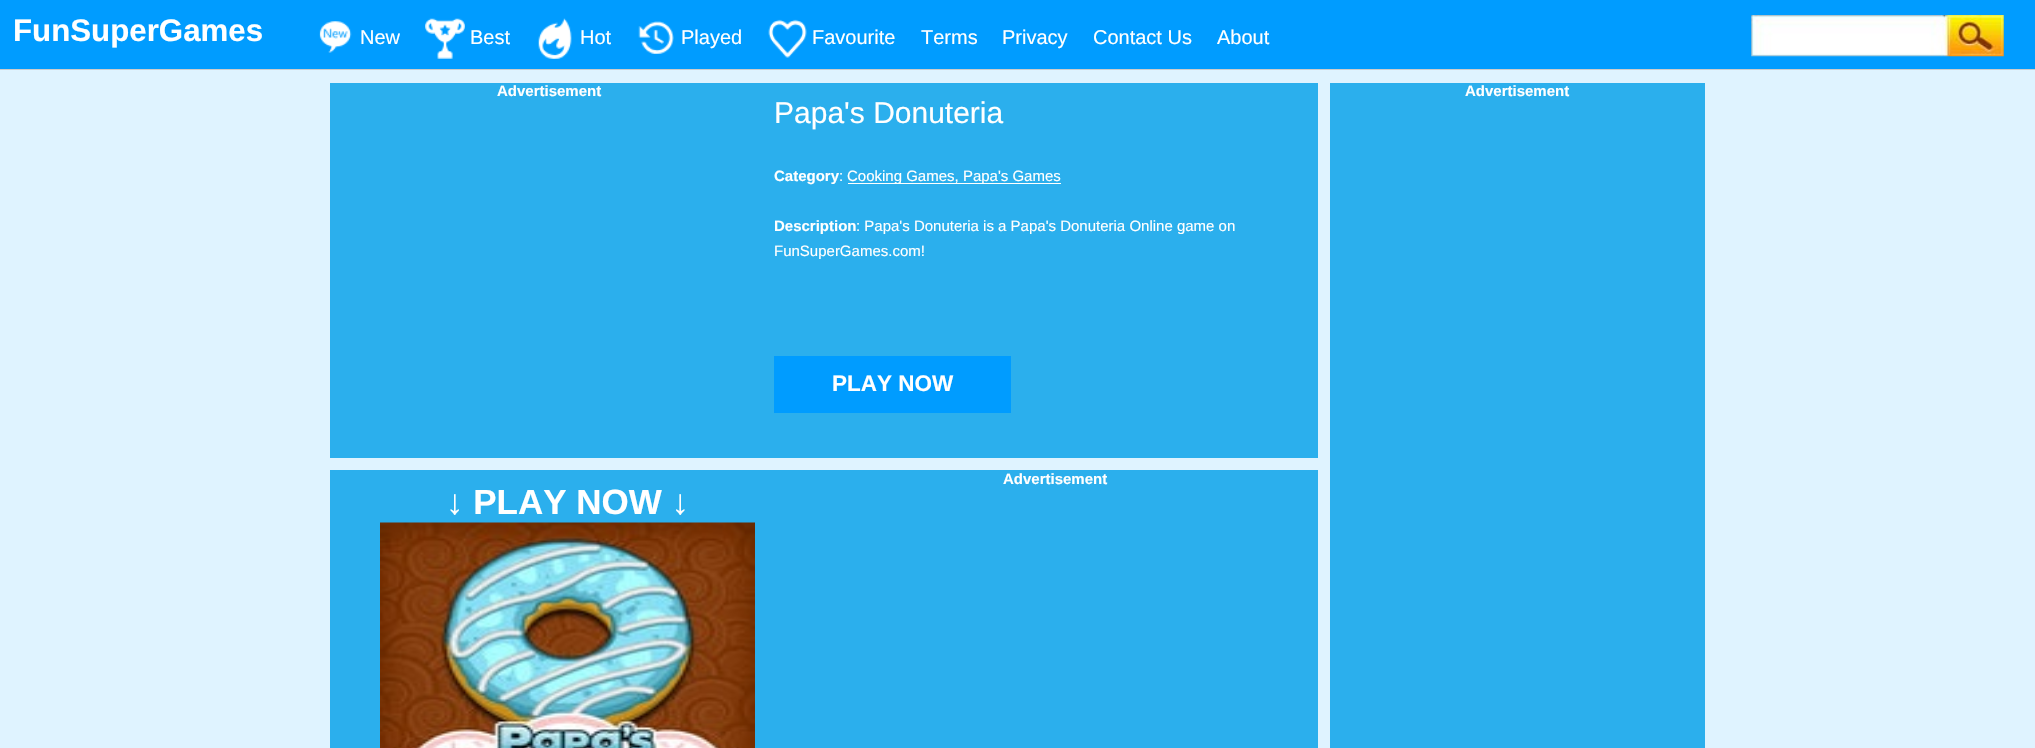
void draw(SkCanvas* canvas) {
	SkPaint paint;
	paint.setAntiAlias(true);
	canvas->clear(0xffdff3ff);
	paint.setColor(0xff009cff);
	canvas->drawRect(SkRect::MakeXYWH(0, 0, 2035, 69), paint);
	paint.setColor(0xffcccccc);
	canvas->drawRect(SkRect::MakeXYWH(0, 69, 2035, 1), paint);
	SkFont f1(fontMgr->matchFamilyStyle("Liberation Sans", SkFontStyle::Bold()), 31.25);
	f1.setSubpixel(true);
	paint.setColor(0xffffffff);
	canvas->drawString("FunSuperGames", 13, 41, f1, paint);
	canvas->drawImageRect(SkImages::DeferredFromEncodedData(SkData::MakeFromFileName("img1.png")), SkRect::MakeXYWH(319, 21, 33, 32), SkSamplingOptions());
	SkFont f2(fontMgr->matchFamilyStyle("Liberation Sans", SkFontStyle::Normal()), 20);
	f2.setSubpixel(true);
	canvas->drawString("New", 360, 44, f2, paint);
	canvas->drawImageRect(SkImages::DeferredFromEncodedData(SkData::MakeFromFileName("img2.png")), SkRect::MakeXYWH(425, 18, 40, 41), SkSamplingOptions());
	canvas->drawString("Best", 470, 44, f2, paint);
	canvas->drawImageRect(SkImages::DeferredFromEncodedData(SkData::MakeFromFileName("img3.png")), SkRect::MakeXYWH(538, 18, 34, 41), SkSamplingOptions());
	canvas->drawString("Hot", 580, 44, f2, paint);
	canvas->drawImageRect(SkImages::DeferredFromEncodedData(SkData::MakeFromFileName("img4.png")), SkRect::MakeXYWH(638, 21, 36, 33), SkSamplingOptions());
	canvas->drawString("Played", 681, 44, f2, paint);
	canvas->drawImageRect(SkImages::DeferredFromEncodedData(SkData::MakeFromFileName("img5.png")), SkRect::MakeXYWH(768, 19, 39, 39), SkSamplingOptions());
	canvas->drawString("Favourite", 812, 44, f2, paint);
	canvas->drawString("Terms", 921, 44, f2, paint);
	canvas->drawString("Privacy", 1002, 44, f2, paint);
	canvas->drawString("Contact Us", 1093, 44, f2, paint);
	canvas->drawString("About", 1217, 44, f2, paint);
	canvas->drawImageRect(SkImages::DeferredFromEncodedData(SkData::MakeFromFileName("img6.png")), SkRect::MakeXYWH(1751, 15, 253, 42), SkSamplingOptions());
	paint.setColor(0xff2bafed);
	canvas->drawRect(SkRect::MakeXYWH(330, 83, 988, 375), paint);
	SkFont f3(fontMgr->matchFamilyStyle("Liberation Sans", SkFontStyle::Bold()), 15);
	f3.setSubpixel(true);
	paint.setColor(0xffffffff);
	canvas->drawString("Advertisement", 497, 96, f3, paint);
	SkFont f4(fontMgr->matchFamilyStyle("Liberation Sans", SkFontStyle::Normal()), 30);
	f4.setSubpixel(true);
	canvas->drawString("Papa's Donuteria", 774, 123, f4, paint);
	canvas->drawString("Category", 774, 181, f3, paint);
	SkFont f5(fontMgr->matchFamilyStyle("Liberation Sans", SkFontStyle::Normal()), 15);
	f5.setSubpixel(true);
	canvas->drawString(":", 839, 181, f5, paint);
	canvas->drawRect(SkRect::MakeXYWH(848, 183, 213, 1), paint);
	canvas->drawString("Cooking Games, Papa's Games", 847, 181, f5, paint);
	canvas->drawString("Description", 774, 231, f3, paint);
	canvas->drawString(": Papa's Donuteria is a Papa's Donuteria Online game on", 856, 231, f5, paint);
	canvas->drawString("FunSuperGames.com!", 774, 256, f5, paint);
	paint.setColor(0xff009cff);
	canvas->drawRect(SkRect::MakeXYWH(774, 356, 237, 57), paint);
	SkFont f6(fontMgr->matchFamilyStyle("Liberation Sans", SkFontStyle::Bold()), 22.5);
	f6.setSubpixel(true);
	paint.setColor(0xffffffff);
	canvas->drawString("PLAY NOW", 832, 391, f6, paint);
	paint.setColor(0xff2bafed);
	canvas->drawRect(SkRect::MakeXYWH(330, 470, 988, 278), paint);
	paint.setColor(0xffffffff);
	canvas->drawString("Advertisement", 1003, 484, f3, paint);
	SkFont f7(fontMgr->matchFamilyStyle("Liberation Sans", SkFontStyle::Bold()), 35);
	f7.setSubpixel(true);
	canvas->drawString("↓ PLAY NOW ↓", 446, 514, f7, paint);
	canvas->drawImageRect(SkImages::DeferredFromEncodedData(SkData::MakeFromFileName("img7.png")), SkRect::MakeXYWH(380, 522, 375, 226), SkSamplingOptions());
	paint.setColor(0xff2bafed);
	canvas->drawRect(SkRect::MakeXYWH(1330, 83, 375, 665), paint);
	paint.setColor(0xffffffff);
	canvas->drawString("Advertisement", 1465, 96, f3, paint);
}
